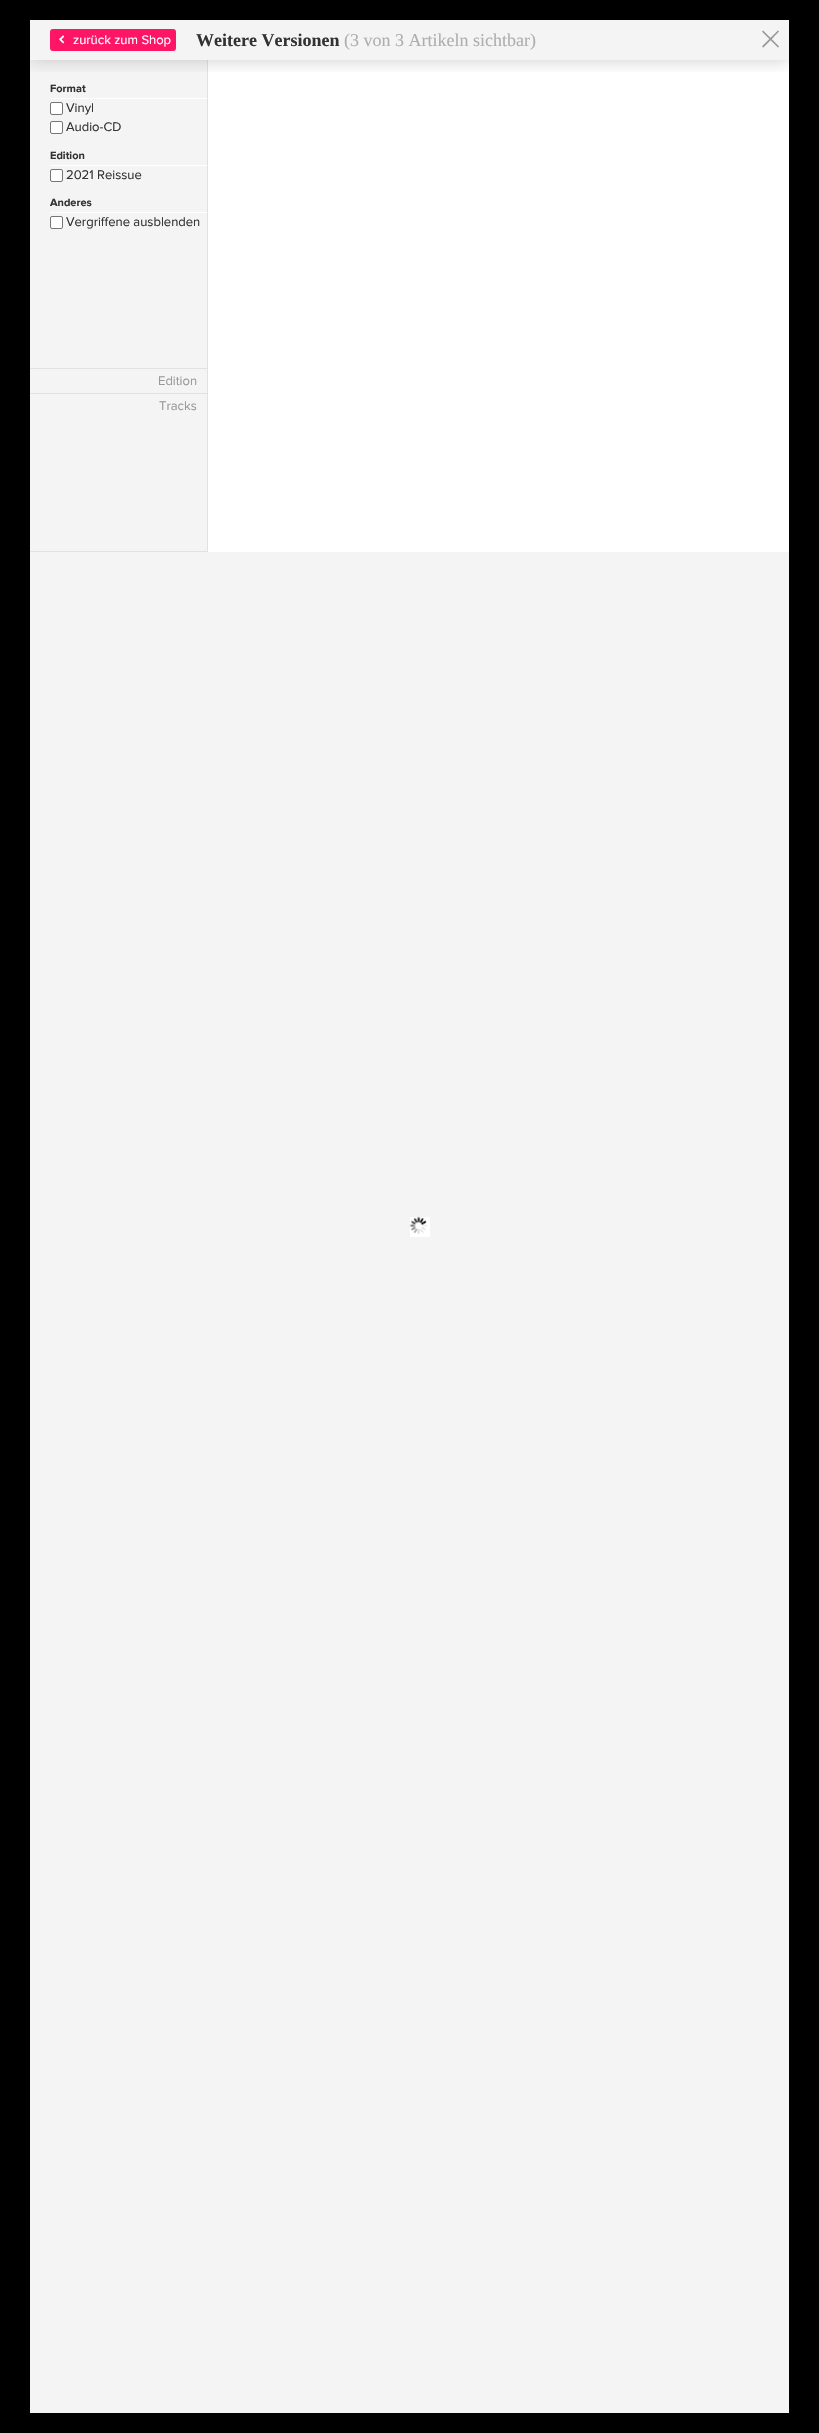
void draw(SkCanvas* canvas) {
	SkPaint paint;
	paint.setAntiAlias(true);
	canvas->clear(0xfff4f4f4);
	paint.setColor(0xffe1e1e1);
	canvas->drawRect(SkRect::MakeXYWH(30, 368, 178, 1), paint);
	canvas->drawRect(SkRect::MakeXYWH(207, 60, 1, 333), paint);
	paint.setColor(0xffffffff);
	canvas->drawRect(SkRect::MakeXYWH(208, 60, 581, 492), paint);
	canvas->save();
	canvas->clipRect(SkRect::MakeXYWH(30, 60, 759, 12));
	paint.setColor(0x33000000);
	paint.setMaskFilter(SkMaskFilter::MakeBlur(kNormal_SkBlurStyle, 9));
	canvas->drawRect(SkRect::MakeXYWH(30, 20, 759, 40), paint);
	paint.setMaskFilter(nullptr);
	canvas->restore();
	paint.setColor(0xff000000);
	canvas->drawRect(SkRect::MakeXYWH(0, 0, 30, 2433), paint);
	canvas->drawRect(SkRect::MakeXYWH(30, 0, 759, 20), paint);
	canvas->drawRect(SkRect::MakeXYWH(789, 0, 30, 2413), paint);
	paint.setColor(0xffff1566);
	canvas->drawRoundRect(SkRect::MakeXYWH(50, 29, 126, 22), 3, 3, paint);
	canvas->drawImageRect(SkImages::DeferredFromEncodedData(SkData::MakeFromFileName("img1.png")), SkRect::MakeXYWH(59, 35, 5, 9), SkSamplingOptions());
	SkFont f1(fontMgr->matchFamilyStyle("Proxima Nova", SkFontStyle::Normal()), 13);
	f1.setSubpixel(true);
	paint.setColor(0xffffffff);
	canvas->drawString("zurück zum Shop", 73, 44, f1, paint);
	SkFont f2(fontMgr->matchFamilyStyle("Liberation Serif", SkFontStyle::Bold()), 18);
	f2.setSubpixel(true);
	paint.setColor(0xff333333);
	canvas->drawString("Weitere Versionen", 196, 46, f2, paint);
	SkFont f3(fontMgr->matchFamilyStyle("Liberation Serif", SkFontStyle::Normal()), 18);
	f3.setSubpixel(true);
	paint.setColor(0xffaeaeae);
	canvas->drawString("(3 von 3 Artikeln sichtbar)", 344, 46, f3, paint);
	canvas->drawImageRect(SkImages::DeferredFromEncodedData(SkData::MakeFromFileName("img2.png")), SkRect::MakeXYWH(762, 30, 17, 18), SkSamplingOptions());
	paint.setColor(0xffe1e1e1);
	canvas->drawRect(SkRect::MakeXYWH(30, 551, 178, 1), paint);
	paint.setColor(0xffffffff);
	canvas->drawRect(SkRect::MakeXYWH(50, 98, 157, 1), paint);
	SkFont f4(fontMgr->matchFamilyStyle("Proxima Nova", SkFontStyle::Bold()), 11);
	f4.setSubpixel(true);
	paint.setColor(0xff333333);
	canvas->drawString("Format", 50, 92, f4, paint);
	paint.setColor(0xffffffff);
	canvas->drawRoundRect(SkRect::MakeXYWH(50.5, 102.5, 12, 12), 1.5, 1.5, paint);
	paint.setStroke(true);
	paint.setStrokeWidth(1);
	paint.setColor(0xff767676);
	canvas->drawRoundRect(SkRect::MakeXYWH(50.5, 102.5, 12, 12), 1.5, 1.5, paint);
	paint.setStroke(false);
	paint.setColor(0xff333333);
	canvas->drawString("Vinyl", 66, 112, f1, paint);
	paint.setColor(0xffffffff);
	canvas->drawRoundRect(SkRect::MakeXYWH(50.5, 121.5, 12, 12), 1.5, 1.5, paint);
	paint.setStroke(true);
	paint.setColor(0xff767676);
	canvas->drawRoundRect(SkRect::MakeXYWH(50.5, 121.5, 12, 12), 1.5, 1.5, paint);
	paint.setStroke(false);
	paint.setColor(0xff333333);
	canvas->drawString("Audio-CD", 66, 131, f1, paint);
	paint.setColor(0xffffffff);
	canvas->drawRect(SkRect::MakeXYWH(50, 165, 157, 1), paint);
	paint.setColor(0xff333333);
	canvas->drawString("Edition", 50, 159, f4, paint);
	paint.setColor(0xffffffff);
	canvas->drawRoundRect(SkRect::MakeXYWH(50.5, 169.5, 12, 12), 1.5, 1.5, paint);
	paint.setStroke(true);
	paint.setColor(0xff767676);
	canvas->drawRoundRect(SkRect::MakeXYWH(50.5, 169.5, 12, 12), 1.5, 1.5, paint);
	paint.setStroke(false);
	paint.setColor(0xff333333);
	canvas->drawString("2021 Reissue", 66, 179, f1, paint);
	paint.setColor(0xffffffff);
	canvas->drawRect(SkRect::MakeXYWH(50, 212, 157, 1), paint);
	paint.setColor(0xff333333);
	canvas->drawString("Anderes", 50, 206, f4, paint);
	paint.setColor(0xffffffff);
	canvas->drawRoundRect(SkRect::MakeXYWH(50.5, 216.5, 12, 12), 1.5, 1.5, paint);
	paint.setStroke(true);
	paint.setColor(0xff767676);
	canvas->drawRoundRect(SkRect::MakeXYWH(50.5, 216.5, 12, 12), 1.5, 1.5, paint);
	paint.setStroke(false);
	paint.setColor(0xff333333);
	canvas->drawString("Vergriffene ausblenden", 66, 226, f1, paint);
	paint.setColor(0xff999999);
	canvas->drawString("Edition", 158, 385, f1, paint);
	paint.setColor(0xffe1e1e1);
	canvas->drawRect(SkRect::MakeXYWH(30, 393, 178, 1), paint);
	canvas->drawRect(SkRect::MakeXYWH(207, 393, 1, 158), paint);
	paint.setColor(0xff999999);
	canvas->drawString("Tracks", 159, 410, f1, paint);
	paint.setColor(0xffffffff);
	canvas->drawRect(SkRect::MakeXYWH(410, 1217, 20, 20), paint);
	canvas->drawImageRect(SkImages::DeferredFromEncodedData(SkData::MakeFromFileName("img3.png")), SkRect::MakeXYWH(409, 1216, 18, 18), SkSamplingOptions());
	paint.setColor(0xff000000);
	canvas->drawRect(SkRect::MakeXYWH(30, 2413, 789, 20), paint);
}
